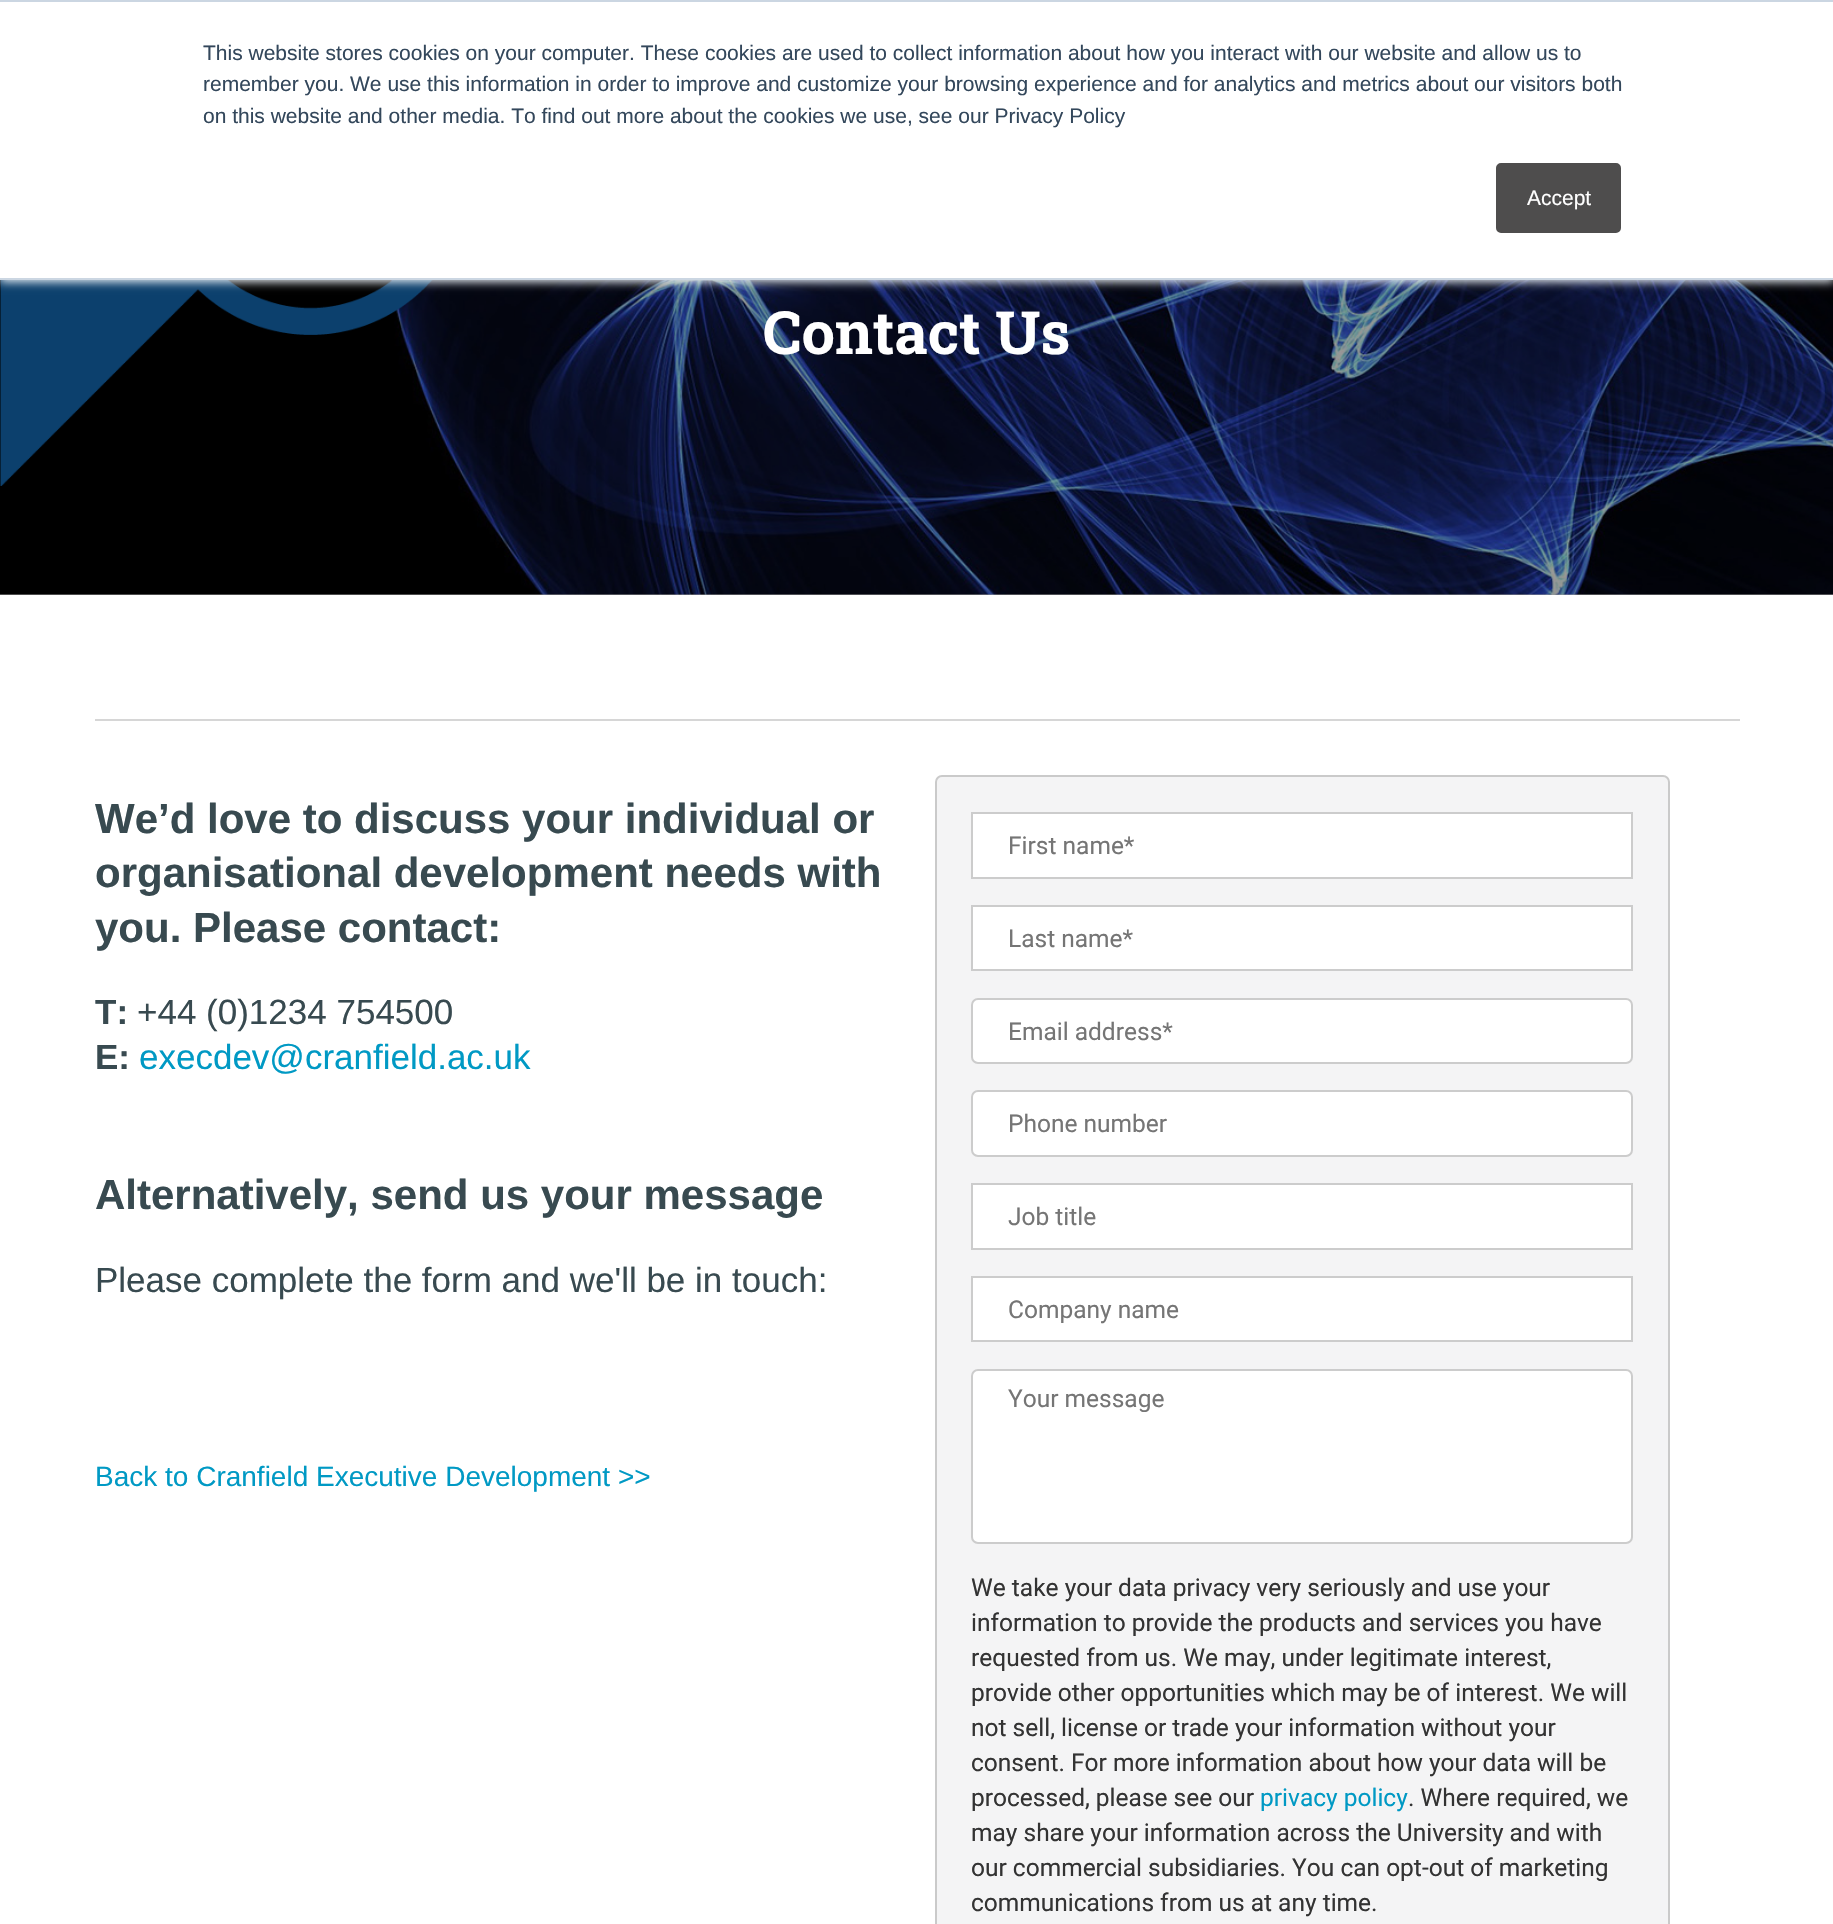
void draw(SkCanvas* canvas) {
	SkPaint paint;
	paint.setAntiAlias(true);
	auto svgPath = [&](const char* data, bool evenOdd = false) {
		SkPath result = *SkParsePath::FromSVGString(data);
		if (evenOdd) result.setFillType(SkPathFillType::kEvenOdd);
		return result;
	};
	canvas->clear(0xffffffff);
	canvas->drawImageRect(SkImages::DeferredFromEncodedData(SkData::MakeFromFileName("img1.png")), SkRect::MakeXYWH(0, 280, 1833, 315), SkSamplingOptions());
	canvas->save();
	canvas->clipRect(SkRect::MakeXYWH(0, 0, 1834, 595));
	paint.setColor(0x66000000);
	canvas->drawPath(svgPath("M-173-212H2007V768H-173ZM525 1186H1309V770H525Z", true), paint);
	canvas->restore();
	canvas->drawImageRect(SkImages::DeferredFromEncodedData(SkData::MakeFromFileName("img2.png")), SkRect::MakeXYWH(0, 280, 433, 206), SkSamplingOptions());
	paint.setColor(0xffeaf0f6);
	paint.setMaskFilter(SkMaskFilter::MakeBlur(kNormal_SkBlurStyle, 4.5));
	canvas->drawRect(SkRect::MakeXYWH(0, 2, 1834, 280), paint);
	paint.setMaskFilter(nullptr);
	paint.setColor(0xffffffff);
	canvas->drawRect(SkRect::MakeXYWH(0, 2, 1833, 276), paint);
	paint.setColor(0xffcbd6e2);
	canvas->drawRect(SkRect::MakeXYWH(0, 0, 1833, 2), paint);
	canvas->drawRect(SkRect::MakeXYWH(0, 278, 1833, 2), paint);
	SkFont f1(fontMgr->matchFamilyStyle("Liberation Sans", SkFontStyle::Normal()), 21);
	f1.setSubpixel(true);
	paint.setColor(0xff33475b);
	canvas->drawString("This website stores cookies on your computer. These cookies are used to collect information about how you interact with our website and allow us to", 203, 60, f1, paint);
	canvas->drawString("remember you. We use this information in order to improve and customize your browsing experience and for analytics and metrics about our visitors both", 203, 91, f1, paint);
	canvas->drawString("on this website and other media. To find out more about the cookies we use, see our Privacy Policy", 203, 123, f1, paint);
	paint.setColor(0xff4e4d4d);
	canvas->drawRoundRect(SkRect::MakeXYWH(1497, 164, 123, 68), 4, 4, paint);
	paint.setStroke(true);
	paint.setStrokeWidth(2);
	canvas->drawRoundRect(SkRect::MakeXYWH(1497, 164, 123, 68), 4, 4, paint);
	paint.setStroke(false);
	paint.setColor(0xffffffff);
	canvas->drawString("Accept", 1527, 205, f1, paint);
	SkFont f2(fontMgr->matchFamilyStyle("Roboto Slab", SkFontStyle::Bold()), 59.5);
	f2.setSubpixel(true);
	canvas->drawString("Contact Us", 763, 354, f2, paint);
	paint.setColor(0xffd6d6d6);
	canvas->drawRect(SkRect::MakeXYWH(95, 719, 1645, 2), paint);
	SkFont f3(fontMgr->matchFamilyStyle("Liberation Sans", SkFontStyle::Bold()), 42);
	f3.setSubpixel(true);
	paint.setColor(0xff384a50);
	canvas->drawString("We’d love to discuss your individual or", 95, 833, f3, paint);
	canvas->drawString("organisational development needs with", 95, 887, f3, paint);
	canvas->drawString("you. Please contact:", 95, 942, f3, paint);
	SkFont f4(fontMgr->matchFamilyStyle("Liberation Sans", SkFontStyle::Bold()), 35);
	f4.setSubpixel(true);
	canvas->drawString("T:", 95, 1024, f4, paint);
	SkFont f5(fontMgr->matchFamilyStyle("Liberation Sans", SkFontStyle::Normal()), 35);
	f5.setSubpixel(true);
	canvas->drawString("+44 (0)1234 754500", 137, 1024, f5, paint);
	canvas->drawString("E:", 95, 1069, f4, paint);
	paint.setColor(0xff0099c4);
	canvas->drawString("execdev@cranfield.ac.uk", 139, 1069, f5, paint);
	paint.setColor(0xff384a50);
	canvas->drawString("Alternatively, send us your message", 95, 1209, f3, paint);
	canvas->drawString("Please complete the form and we'll be in touch:", 95, 1292, f5, paint);
	SkFont f6(fontMgr->matchFamilyStyle("Liberation Sans", SkFontStyle::Normal()), 28);
	f6.setSubpixel(true);
	paint.setColor(0xff0099c4);
	canvas->drawString("Back to Cranfield Executive Development >>", 95, 1486, f6, paint);
	paint.setColor(0xfff4f4f5);
	canvas->drawRoundRect(SkRect::MakeXYWH(936, 776, 733, 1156), 6, 6, paint);
	paint.setStroke(true);
	paint.setColor(0xffcacaca);
	canvas->drawRoundRect(SkRect::MakeXYWH(936, 776, 733, 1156), 6, 6, paint);
	paint.setStroke(false);
	paint.setColor(0xffffffff);
	canvas->drawRect(SkRect::MakeXYWH(972, 813, 660, 65), paint);
	paint.setStroke(true);
	paint.setColor(0xffcccccc);
	canvas->drawRect(SkRect::MakeXYWH(972, 813, 660, 65), paint);
	SkFont f7(fontMgr->matchFamilyStyle("Roboto", SkFontStyle::Normal()), 24.5);
	f7.setSubpixel(true);
	paint.setStroke(false);
	paint.setColor(0xff757575);
	canvas->drawString("First name*", 1008, 854, f7, paint);
	paint.setColor(0xffffffff);
	canvas->drawRect(SkRect::MakeXYWH(972, 906, 660, 64), paint);
	paint.setStroke(true);
	paint.setColor(0xffcccccc);
	canvas->drawRect(SkRect::MakeXYWH(972, 906, 660, 64), paint);
	paint.setStroke(false);
	paint.setColor(0xff757575);
	canvas->drawString("Last name*", 1008, 947, f7, paint);
	paint.setColor(0xffffffff);
	canvas->drawRoundRect(SkRect::MakeXYWH(972, 999, 660, 64), 6, 6, paint);
	paint.setStroke(true);
	paint.setColor(0xffcccccc);
	canvas->drawRoundRect(SkRect::MakeXYWH(972, 999, 660, 64), 6, 6, paint);
	paint.setStroke(false);
	paint.setColor(0xff757575);
	canvas->drawString("Email address*", 1008, 1040, f7, paint);
	paint.setColor(0xffffffff);
	canvas->drawRoundRect(SkRect::MakeXYWH(972, 1091, 660, 65), 6, 6, paint);
	paint.setStroke(true);
	paint.setColor(0xffcccccc);
	canvas->drawRoundRect(SkRect::MakeXYWH(972, 1091, 660, 65), 6, 6, paint);
	paint.setStroke(false);
	paint.setColor(0xff757575);
	canvas->drawString("Phone number", 1008, 1132, f7, paint);
	paint.setColor(0xffffffff);
	canvas->drawRect(SkRect::MakeXYWH(972, 1184, 660, 65), paint);
	paint.setStroke(true);
	paint.setColor(0xffcccccc);
	canvas->drawRect(SkRect::MakeXYWH(972, 1184, 660, 65), paint);
	paint.setStroke(false);
	paint.setColor(0xff757575);
	canvas->drawString("Job title", 1008, 1225, f7, paint);
	paint.setColor(0xffffffff);
	canvas->drawRect(SkRect::MakeXYWH(972, 1277, 660, 64), paint);
	paint.setStroke(true);
	paint.setColor(0xffcccccc);
	canvas->drawRect(SkRect::MakeXYWH(972, 1277, 660, 64), paint);
	paint.setStroke(false);
	paint.setColor(0xff757575);
	canvas->drawString("Company name", 1008, 1318, f7, paint);
	paint.setColor(0xffffffff);
	canvas->drawRoundRect(SkRect::MakeXYWH(972, 1370, 660, 173), 6, 6, paint);
	paint.setStroke(true);
	paint.setColor(0xffcccccc);
	canvas->drawRoundRect(SkRect::MakeXYWH(972, 1370, 660, 173), 6, 6, paint);
	paint.setStroke(false);
	paint.setColor(0xff757575);
	canvas->drawString("Your message", 1008, 1407, f7, paint);
	paint.setColor(0xff333333);
	canvas->drawString("We take your data privacy very seriously and use your", 971, 1596, f7, paint);
	canvas->drawString("information to provide the products and services you have", 971, 1631, f7, paint);
	canvas->drawString("requested from us. We may, under legitimate interest,", 971, 1666, f7, paint);
	canvas->drawString("provide other opportunities which may be of interest. We will", 971, 1701, f7, paint);
	canvas->drawString("not sell, license or trade your information without your", 971, 1736, f7, paint);
	canvas->drawString("consent. For more information about how your data will be", 971, 1771, f7, paint);
	canvas->drawString("processed, please see our", 971, 1806, f7, paint);
	paint.setColor(0xff0099c4);
	canvas->drawString("privacy policy", 1260, 1806, f7, paint);
	paint.setColor(0xff333333);
	canvas->drawString(". Where required, we", 1408, 1806, f7, paint);
	canvas->drawString("may share your information across the University and with", 971, 1841, f7, paint);
	canvas->drawString("our commercial subsidiaries. You can opt-out of marketing", 971, 1876, f7, paint);
	canvas->drawString("communications from us at any time.", 971, 1911, f7, paint);
}
